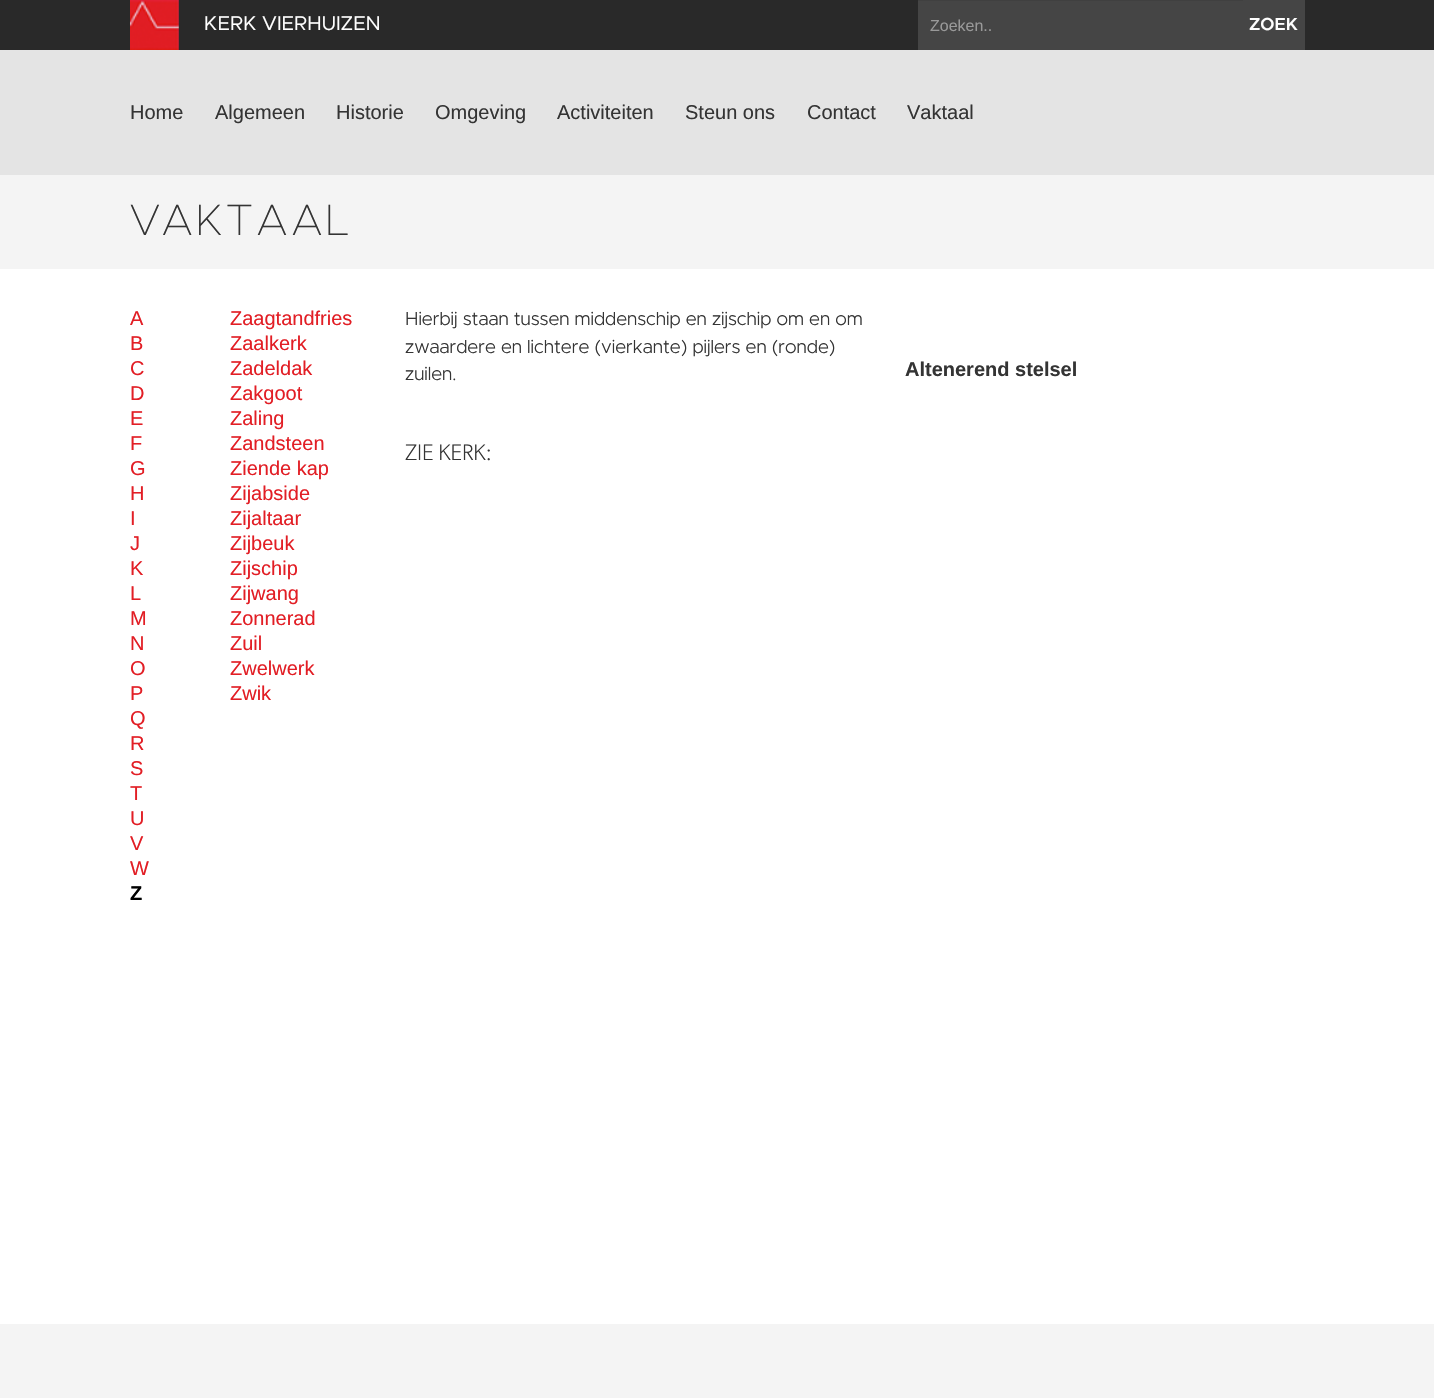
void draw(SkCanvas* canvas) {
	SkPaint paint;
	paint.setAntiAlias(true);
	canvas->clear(0xffffffff);
	paint.setColor(0xff292929);
	canvas->drawRect(SkRect::MakeXYWH(0, 0, 1434, 50), paint);
	canvas->drawImageRect(SkImages::DeferredFromEncodedData(SkData::MakeFromFileName("img1.png")), SkRect::MakeXYWH(130, 0, 49, 50), SkSamplingOptions());
	SkFont f1(fontMgr->matchFamilyStyle("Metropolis", SkFontStyle::Normal()), 20);
	f1.setSubpixel(true);
	paint.setColor(0xffffffff);
	canvas->drawString("KERK VIERHUIZEN", 204, 30, f1, paint);
	paint.setColor(0xff454545);
	canvas->drawRect(SkRect::MakeXYWH(918, 0, 387, 50), paint);
	paint.setColor(0xff404040);
	canvas->drawRect(SkRect::MakeXYWH(918, 0, 325, 1), paint);
	SkFont f2(fontMgr->matchFamilyStyle("Liberation Sans", SkFontStyle::Normal()), 16);
	f2.setSubpixel(true);
	paint.setColor(0xff999999);
	canvas->drawString("Zoeken..", 930, 31, f2, paint);
	SkFont f3(fontMgr->matchFamilyStyle("Metropolis", SkFontStyle(600, SkFontStyle::kNormal_Width, SkFontStyle::kUpright_Slant)), 17.5);
	f3.setSubpixel(true);
	paint.setColor(0xffffffff);
	canvas->drawString("ZOEK", 1249, 30, f3, paint);
	paint.setColor(0xffe4e4e4);
	canvas->drawRect(SkRect::MakeXYWH(0, 50, 1434, 125), paint);
	SkFont f4(fontMgr->matchFamilyStyle("Liberation Sans", SkFontStyle::Normal()), 20);
	f4.setSubpixel(true);
	paint.setColor(0xff343434);
	canvas->drawString("Home", 130, 119, f4, paint);
	canvas->drawString("Algemeen", 215, 119, f4, paint);
	canvas->drawString("Historie", 336, 119, f4, paint);
	canvas->drawString("Omgeving", 435, 119, f4, paint);
	canvas->drawString("Activiteiten", 557, 119, f4, paint);
	canvas->drawString("Steun ons", 685, 119, f4, paint);
	canvas->drawString("Contact", 807, 119, f4, paint);
	canvas->drawString("Vaktaal", 907, 119, f4, paint);
	paint.setColor(0xfff4f4f4);
	canvas->drawRect(SkRect::MakeXYWH(0, 175, 1434, 94), paint);
	SkFont f5(fontMgr->matchFamilyStyle("Metropolis", SkFontStyle(100, SkFontStyle::kNormal_Width, SkFontStyle::kUpright_Slant)), 44);
	f5.setSubpixel(true);
	paint.setColor(0xff343434);
	canvas->drawString("VAKTAAL", 130, 235, f5, paint);
	paint.setColor(0xffe21e25);
	canvas->drawString("A", 130, 325, f4, paint);
	canvas->drawString("B", 130, 350, f4, paint);
	canvas->drawString("C", 130, 375, f4, paint);
	canvas->drawString("D", 130, 400, f4, paint);
	canvas->drawString("E", 130, 425, f4, paint);
	canvas->drawString("F", 130, 450, f4, paint);
	canvas->drawString("G", 130, 475, f4, paint);
	canvas->drawString("H", 130, 500, f4, paint);
	canvas->drawString("I", 130, 525, f4, paint);
	canvas->drawString("J", 130, 550, f4, paint);
	canvas->drawString("K", 130, 575, f4, paint);
	canvas->drawString("L", 130, 600, f4, paint);
	canvas->drawString("M", 130, 625, f4, paint);
	canvas->drawString("N", 130, 650, f4, paint);
	canvas->drawString("O", 130, 675, f4, paint);
	canvas->drawString("P", 130, 700, f4, paint);
	canvas->drawString("Q", 130, 725, f4, paint);
	canvas->drawString("R", 130, 750, f4, paint);
	canvas->drawString("S", 130, 775, f4, paint);
	canvas->drawString("T", 130, 800, f4, paint);
	canvas->drawString("U", 130, 825, f4, paint);
	canvas->drawString("V", 130, 850, f4, paint);
	canvas->drawString("W", 130, 875, f4, paint);
	SkFont f6(fontMgr->matchFamilyStyle("Liberation Sans", SkFontStyle::Bold()), 20);
	f6.setSubpixel(true);
	paint.setColor(0xff000000);
	canvas->drawString("Z", 130, 900, f6, paint);
	paint.setColor(0xffe21e25);
	canvas->drawString("Zaagtandfries", 230, 325, f4, paint);
	canvas->drawString("Zaalkerk", 230, 350, f4, paint);
	canvas->drawString("Zadeldak", 230, 375, f4, paint);
	canvas->drawString("Zakgoot", 230, 400, f4, paint);
	canvas->drawString("Zaling", 230, 425, f4, paint);
	canvas->drawString("Zandsteen", 230, 450, f4, paint);
	canvas->drawString("Ziende kap", 230, 475, f4, paint);
	canvas->drawString("Zijabside", 230, 500, f4, paint);
	canvas->drawString("Zijaltaar", 230, 525, f4, paint);
	canvas->drawString("Zijbeuk", 230, 550, f4, paint);
	canvas->drawString("Zijschip", 230, 575, f4, paint);
	canvas->drawString("Zijwang", 230, 600, f4, paint);
	canvas->drawString("Zonnerad", 230, 625, f4, paint);
	canvas->drawString("Zuil", 230, 650, f4, paint);
	canvas->drawString("Zwelwerk", 230, 675, f4, paint);
	canvas->drawString("Zwik", 230, 700, f4, paint);
	SkFont f7(fontMgr->matchFamilyStyle("Metropolis", SkFontStyle(300, SkFontStyle::kNormal_Width, SkFontStyle::kUpright_Slant)), 18.75);
	f7.setSubpixel(true);
	paint.setColor(0xff343434);
	canvas->drawString("Hierbij staan tussen middenschip en zijschip om en om", 405, 325, f7, paint);
	canvas->drawString("zwaardere en lichtere (vierkante) pijlers en (ronde)", 405, 353, f7, paint);
	canvas->drawString("zuilen.", 405, 380, f7, paint);
	SkFont f8(fontMgr->matchFamilyStyle("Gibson", SkFontStyle(300, SkFontStyle::kNormal_Width, SkFontStyle::kUpright_Slant)), 22.5);
	f8.setSubpixel(true);
	canvas->drawString("ZIE KERK:", 405, 460, f8, paint);
	canvas->drawString("Altenerend stelsel", 905, 376, f6, paint);
	paint.setColor(0xfff4f4f4);
	canvas->drawRect(SkRect::MakeXYWH(0, 1324, 1434, 74), paint);
}
